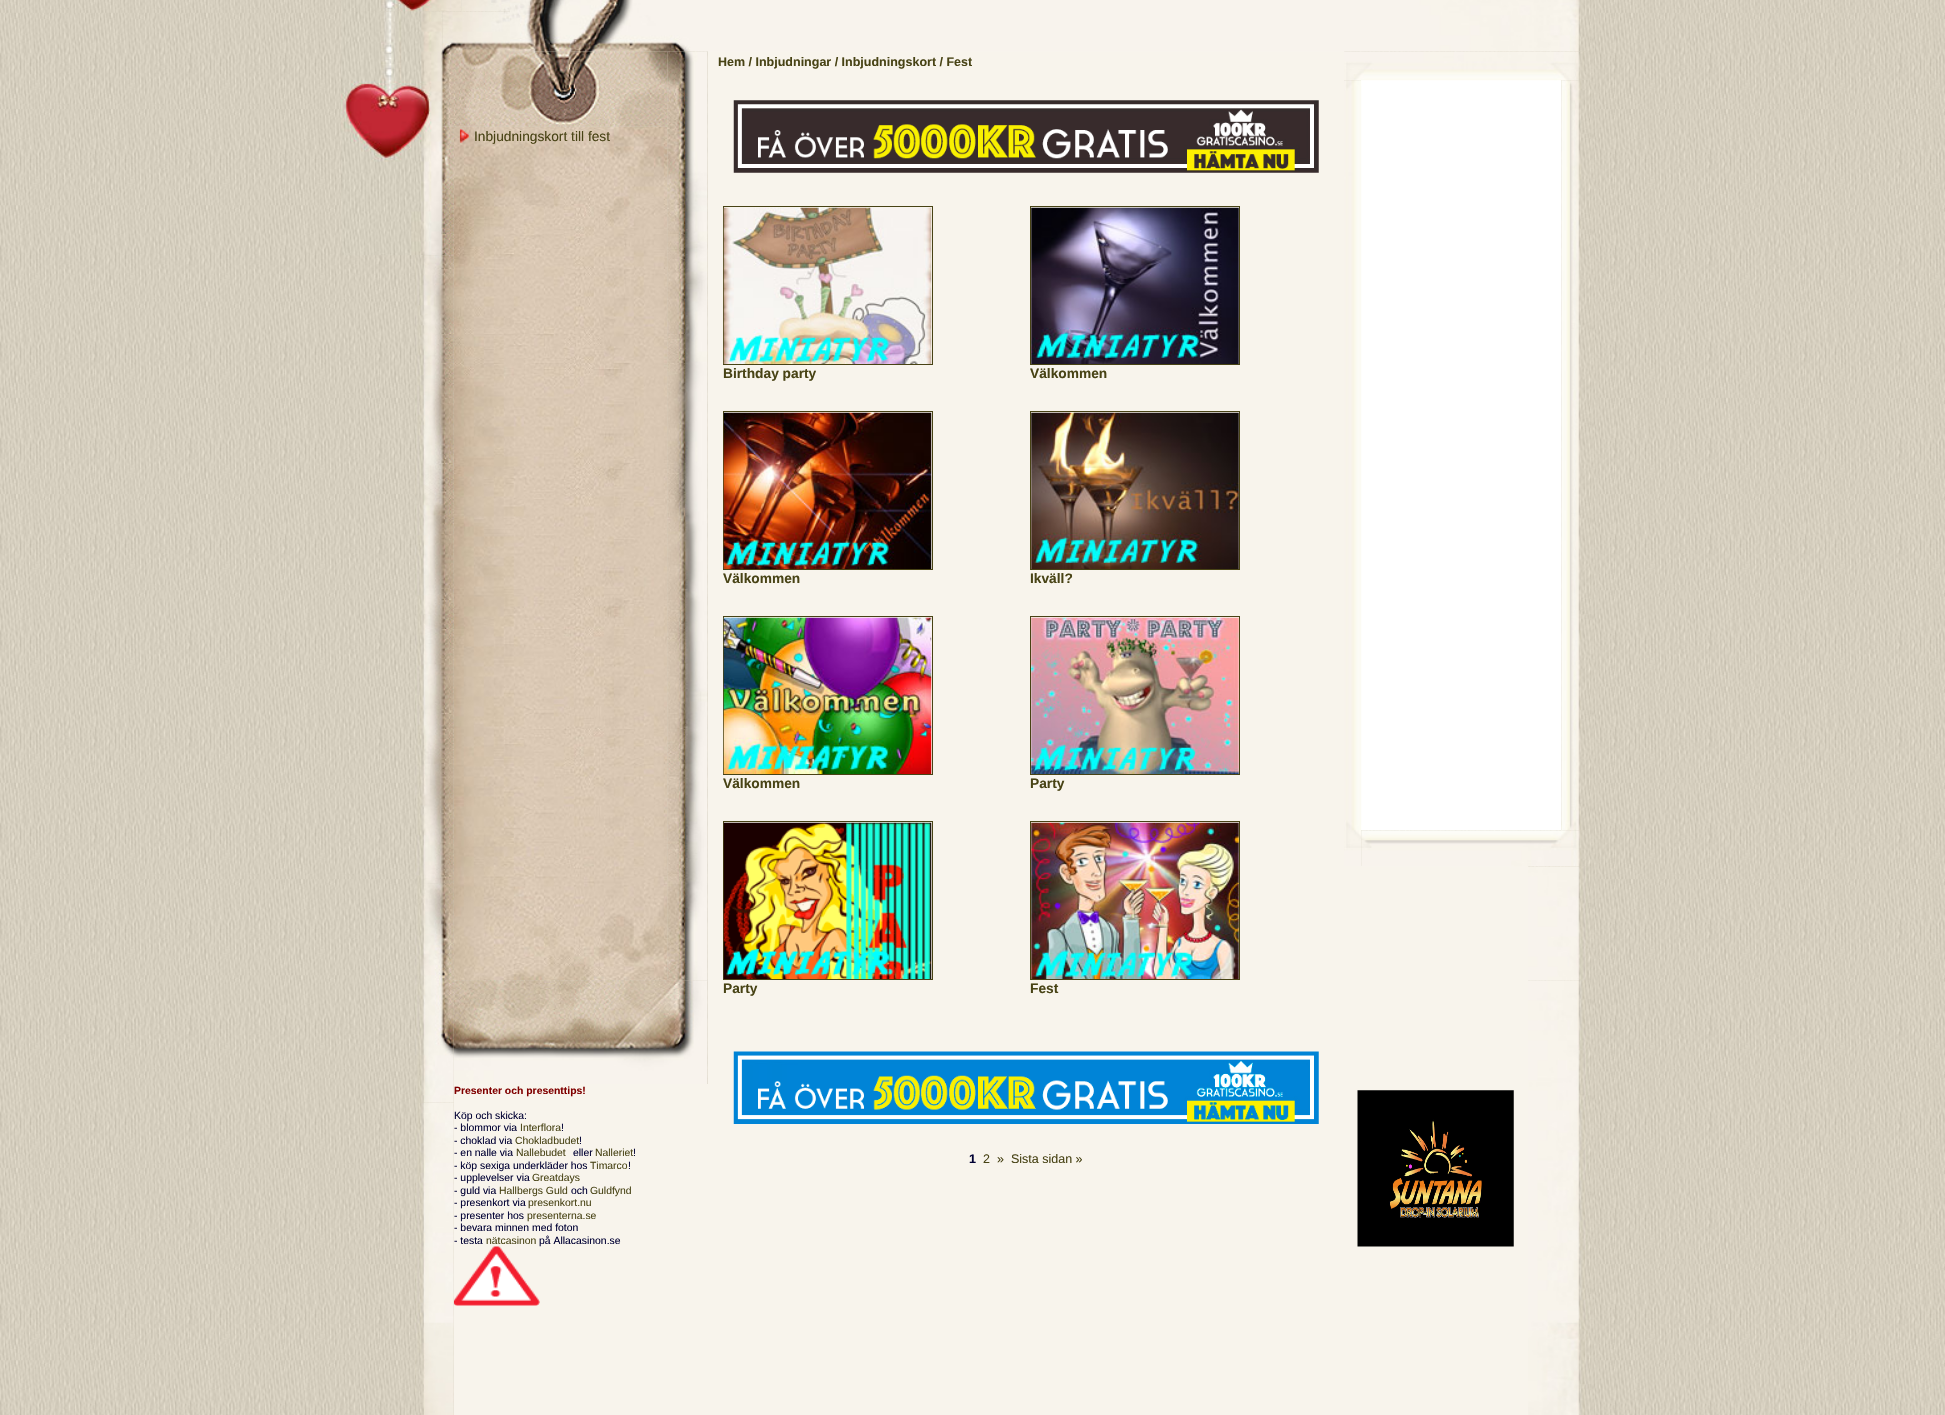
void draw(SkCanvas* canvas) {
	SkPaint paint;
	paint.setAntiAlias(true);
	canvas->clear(0xffffffff);
	canvas->drawImageRect(SkImages::DeferredFromEncodedData(SkData::MakeFromFileName("img1.png")), SkRect::MakeXYWH(0, 0, 1945, 1415), SkSamplingOptions());
	canvas->drawImageRect(SkImages::DeferredFromEncodedData(SkData::MakeFromFileName("img2.png")), SkRect::MakeXYWH(341, 0, 121, 12), SkSamplingOptions());
	canvas->drawImageRect(SkImages::DeferredFromEncodedData(SkData::MakeFromFileName("img3.png")), SkRect::MakeXYWH(461, 0, 49, 12), SkSamplingOptions());
	paint.setColor(0xfff8f4ec);
	canvas->drawRect(SkRect::MakeXYWH(708, 51, 636, 1364), paint);
	canvas->drawImageRect(SkImages::DeferredFromEncodedData(SkData::MakeFromFileName("img4.png")), SkRect::MakeXYWH(510, 0, 1082, 52), SkSamplingOptions());
	canvas->drawImageRect(SkImages::DeferredFromEncodedData(SkData::MakeFromFileName("img5.png")), SkRect::MakeXYWH(341, 11, 102, 245), SkSamplingOptions());
	canvas->drawImageRect(SkImages::DeferredFromEncodedData(SkData::MakeFromFileName("img8.png")), SkRect::MakeXYWH(453, 126, 215, 855), SkSamplingOptions());
	canvas->drawImageRect(SkImages::DeferredFromEncodedData(SkData::MakeFromFileName("img6.png")), SkRect::MakeXYWH(442, 11, 68, 116), SkSamplingOptions());
	canvas->drawImageRect(SkImages::DeferredFromEncodedData(SkData::MakeFromFileName("img7.png")), SkRect::MakeXYWH(442, 126, 12, 130), SkSamplingOptions());
	canvas->drawImageRect(SkImages::DeferredFromEncodedData(SkData::MakeFromFileName("img9.png")), SkRect::MakeXYWH(459, 129, 10, 14), SkSamplingOptions());
	SkFont f1(fontMgr->matchFamilyStyle("Liberation Sans", SkFontStyle::Normal()), 13.75);
	f1.setSubpixel(true);
	paint.setColor(0xff484315);
	canvas->drawString("Inbjudningskort till fest", 474, 141, f1, paint);
	canvas->drawImageRect(SkImages::DeferredFromEncodedData(SkData::MakeFromFileName("img10.png")), SkRect::MakeXYWH(510, 51, 158, 76), SkSamplingOptions());
	canvas->drawImageRect(SkImages::DeferredFromEncodedData(SkData::MakeFromFileName("img29.png")), SkRect::MakeXYWH(453, 980, 255, 104), SkSamplingOptions());
	canvas->drawImageRect(SkImages::DeferredFromEncodedData(SkData::MakeFromFileName("img11.png")), SkRect::MakeXYWH(667, 51, 41, 930), SkSamplingOptions());
	SkFont f2(fontMgr->matchFamilyStyle("Liberation Sans", SkFontStyle::Bold()), 12.5);
	f2.setSubpixel(true);
	canvas->drawString("Hem / Inbjudningar / Inbjudningskort / Fest", 718, 66, f2, paint);
	canvas->drawImageRect(SkImages::DeferredFromEncodedData(SkData::MakeFromFileName("img12.png")), SkRect::MakeXYWH(733, 100, 586, 73), SkSamplingOptions());
	paint.setStroke(true);
	paint.setStrokeWidth(1);
	canvas->drawRect(SkRect::MakeXYWH(723.5, 206.5, 209, 158), paint);
	canvas->drawImageRect(SkImages::DeferredFromEncodedData(SkData::MakeFromFileName("img13.png")), SkRect::MakeXYWH(723, 207, 209, 157), SkSamplingOptions());
	SkFont f3(fontMgr->matchFamilyStyle("Liberation Sans", SkFontStyle::Bold()), 13.75);
	f3.setSubpixel(true);
	paint.setStroke(false);
	canvas->drawString("Birthday party", 723, 378, f3, paint);
	paint.setStroke(true);
	canvas->drawRect(SkRect::MakeXYWH(1030.5, 206.5, 209, 158), paint);
	canvas->drawImageRect(SkImages::DeferredFromEncodedData(SkData::MakeFromFileName("img14.png")), SkRect::MakeXYWH(1031, 207, 208, 157), SkSamplingOptions());
	paint.setStroke(false);
	canvas->drawString("Välkommen", 1030, 378, f3, paint);
	paint.setStroke(true);
	canvas->drawRect(SkRect::MakeXYWH(723.5, 411.5, 209, 158), paint);
	canvas->drawImageRect(SkImages::DeferredFromEncodedData(SkData::MakeFromFileName("img15.png")), SkRect::MakeXYWH(723, 412, 209, 157), SkSamplingOptions());
	paint.setStroke(false);
	canvas->drawString("Välkommen", 723, 583, f3, paint);
	paint.setStroke(true);
	canvas->drawRect(SkRect::MakeXYWH(1030.5, 411.5, 209, 158), paint);
	canvas->drawImageRect(SkImages::DeferredFromEncodedData(SkData::MakeFromFileName("img16.png")), SkRect::MakeXYWH(1031, 412, 208, 157), SkSamplingOptions());
	paint.setStroke(false);
	canvas->drawString("Ikväll?", 1030, 583, f3, paint);
	paint.setStroke(true);
	canvas->drawRect(SkRect::MakeXYWH(723.5, 616.5, 209, 158), paint);
	canvas->drawImageRect(SkImages::DeferredFromEncodedData(SkData::MakeFromFileName("img17.png")), SkRect::MakeXYWH(723, 617, 209, 157), SkSamplingOptions());
	paint.setStroke(false);
	canvas->drawString("Välkommen", 723, 788, f3, paint);
	paint.setStroke(true);
	canvas->drawRect(SkRect::MakeXYWH(1030.5, 616.5, 209, 158), paint);
	canvas->drawImageRect(SkImages::DeferredFromEncodedData(SkData::MakeFromFileName("img18.png")), SkRect::MakeXYWH(1031, 617, 208, 157), SkSamplingOptions());
	paint.setStroke(false);
	canvas->drawString("Party", 1030, 788, f3, paint);
	paint.setStroke(true);
	canvas->drawRect(SkRect::MakeXYWH(723.5, 821.5, 209, 158), paint);
	canvas->drawImageRect(SkImages::DeferredFromEncodedData(SkData::MakeFromFileName("img19.png")), SkRect::MakeXYWH(723, 822, 209, 157), SkSamplingOptions());
	paint.setStroke(false);
	canvas->drawString("Party", 723, 993, f3, paint);
	paint.setStroke(true);
	canvas->drawRect(SkRect::MakeXYWH(1030.5, 821.5, 209, 158), paint);
	canvas->drawImageRect(SkImages::DeferredFromEncodedData(SkData::MakeFromFileName("img20.png")), SkRect::MakeXYWH(1031, 822, 208, 157), SkSamplingOptions());
	paint.setStroke(false);
	canvas->drawString("Fest", 1030, 993, f3, paint);
	canvas->drawImageRect(SkImages::DeferredFromEncodedData(SkData::MakeFromFileName("img21.png")), SkRect::MakeXYWH(733, 1051, 586, 73), SkSamplingOptions());
	paint.setColor(0xff000033);
	canvas->drawString("1", 969, 1163, f2, paint);
	SkFont f4(fontMgr->matchFamilyStyle("Liberation Sans", SkFontStyle::Normal()), 12.5);
	f4.setSubpixel(true);
	paint.setColor(0xff484315);
	canvas->drawString("2", 983, 1163, f4, paint);
	canvas->drawString("»", 997, 1163, f4, paint);
	canvas->drawString("Sista sidan »", 1011, 1163, f4, paint);
	paint.setColor(0xffffffff);
	canvas->drawRect(SkRect::MakeXYWH(1361, 80, 200, 750), paint);
	canvas->drawImageRect(SkImages::DeferredFromEncodedData(SkData::MakeFromFileName("img22.png")), SkRect::MakeXYWH(1344, 51, 248, 30), SkSamplingOptions());
	canvas->drawImageRect(SkImages::DeferredFromEncodedData(SkData::MakeFromFileName("img23.png")), SkRect::MakeXYWH(1344, 80, 18, 786), SkSamplingOptions());
	canvas->drawImageRect(SkImages::DeferredFromEncodedData(SkData::MakeFromFileName("img24.png")), SkRect::MakeXYWH(1561, 80, 31, 751), SkSamplingOptions());
	canvas->drawImageRect(SkImages::DeferredFromEncodedData(SkData::MakeFromFileName("img25.png")), SkRect::MakeXYWH(415, 255, 39, 848), SkSamplingOptions());
	paint.setColor(0xfff8f4ec);
	canvas->drawRect(SkRect::MakeXYWH(1344, 866, 184, 549), paint);
	canvas->drawImageRect(SkImages::DeferredFromEncodedData(SkData::MakeFromFileName("img26.png")), SkRect::MakeXYWH(1361, 830, 231, 37), SkSamplingOptions());
	canvas->drawImageRect(SkImages::DeferredFromEncodedData(SkData::MakeFromFileName("img27.png")), SkRect::MakeXYWH(1357, 1090, 157, 157), SkSamplingOptions());
	canvas->drawImageRect(SkImages::DeferredFromEncodedData(SkData::MakeFromFileName("img28.png")), SkRect::MakeXYWH(1528, 866, 64, 115), SkSamplingOptions());
	canvas->drawImageRect(SkImages::DeferredFromEncodedData(SkData::MakeFromFileName("img30.png")), SkRect::MakeXYWH(1528, 980, 64, 435), SkSamplingOptions());
	canvas->drawRect(SkRect::MakeXYWH(454, 1084, 254, 331), paint);
	SkFont f5(fontMgr->matchFamilyStyle("Liberation Sans", SkFontStyle::Normal()), 10.4);
	f5.setSubpixel(true);
	paint.setColor(0xff000033);
	canvas->drawString("på Allacasinon.se", 539, 1244, f5, paint);
	canvas->drawImageRect(SkImages::DeferredFromEncodedData(SkData::MakeFromFileName("img32.png")), SkRect::MakeXYWH(453, 1246, 87, 60), SkSamplingOptions());
	canvas->drawImageRect(SkImages::DeferredFromEncodedData(SkData::MakeFromFileName("img31.png")), SkRect::MakeXYWH(415, 1103, 39, 312), SkSamplingOptions());
	SkFont f6(fontMgr->matchFamilyStyle("Liberation Sans", SkFontStyle::Bold()), 10.4);
	f6.setSubpixel(true);
	paint.setColor(0xff800000);
	canvas->drawString("Presenter och presenttips!", 454, 1094, f6, paint);
	paint.setColor(0xff000033);
	canvas->drawString("Köp och skicka:", 454, 1119, f5, paint);
	canvas->drawString("- blommor via", 454, 1131, f5, paint);
	paint.setColor(0xff484315);
	canvas->drawString("Interflora", 520, 1131, f5, paint);
	paint.setColor(0xff000033);
	canvas->drawString("!", 561, 1131, f5, paint);
	canvas->drawString("- choklad via", 454, 1144, f5, paint);
	paint.setColor(0xff484315);
	canvas->drawString("Chokladbudet", 515, 1144, f5, paint);
	paint.setColor(0xff000033);
	canvas->drawString("!", 579, 1144, f5, paint);
	canvas->drawString("- en nalle via", 454, 1156, f5, paint);
	paint.setColor(0xff484315);
	canvas->drawString("Nallebudet", 516, 1156, f5, paint);
	paint.setColor(0xff000033);
	canvas->drawString("eller", 573, 1156, f5, paint);
	paint.setColor(0xff484315);
	canvas->drawString("Nalleriet", 595, 1156, f5, paint);
	paint.setColor(0xff000033);
	canvas->drawString("!", 633, 1156, f5, paint);
	canvas->drawString("- köp sexiga underkläder hos", 454, 1169, f5, paint);
	paint.setColor(0xff484315);
	canvas->drawString("Timarco", 590, 1169, f5, paint);
	paint.setColor(0xff000033);
	canvas->drawString("!", 628, 1169, f5, paint);
	canvas->drawString("- upplevelser via", 454, 1181, f5, paint);
	paint.setColor(0xff484315);
	canvas->drawString("Greatdays", 532, 1181, f5, paint);
	paint.setColor(0xff000033);
	canvas->drawString("- guld via", 454, 1194, f5, paint);
	paint.setColor(0xff484315);
	canvas->drawString("Hallbergs Guld", 499, 1194, f5, paint);
	paint.setColor(0xff000033);
	canvas->drawString("och", 571, 1194, f5, paint);
	paint.setColor(0xff484315);
	canvas->drawString("Guldfynd", 590, 1194, f5, paint);
	paint.setColor(0xff000033);
	canvas->drawString("- presenkort via", 454, 1206, f5, paint);
	paint.setColor(0xff484315);
	canvas->drawString("presenkort.nu", 528, 1206, f5, paint);
	paint.setColor(0xff000033);
	canvas->drawString("- presenter hos", 454, 1219, f5, paint);
	paint.setColor(0xff484315);
	canvas->drawString("presenterna.se", 527, 1219, f5, paint);
	paint.setColor(0xff000033);
	canvas->drawString("- bevara minnen med foton", 454, 1231, f5, paint);
	canvas->drawString("- testa", 454, 1244, f5, paint);
	paint.setColor(0xff484315);
	canvas->drawString("nätcasinon", 486, 1244, f5, paint);
}
